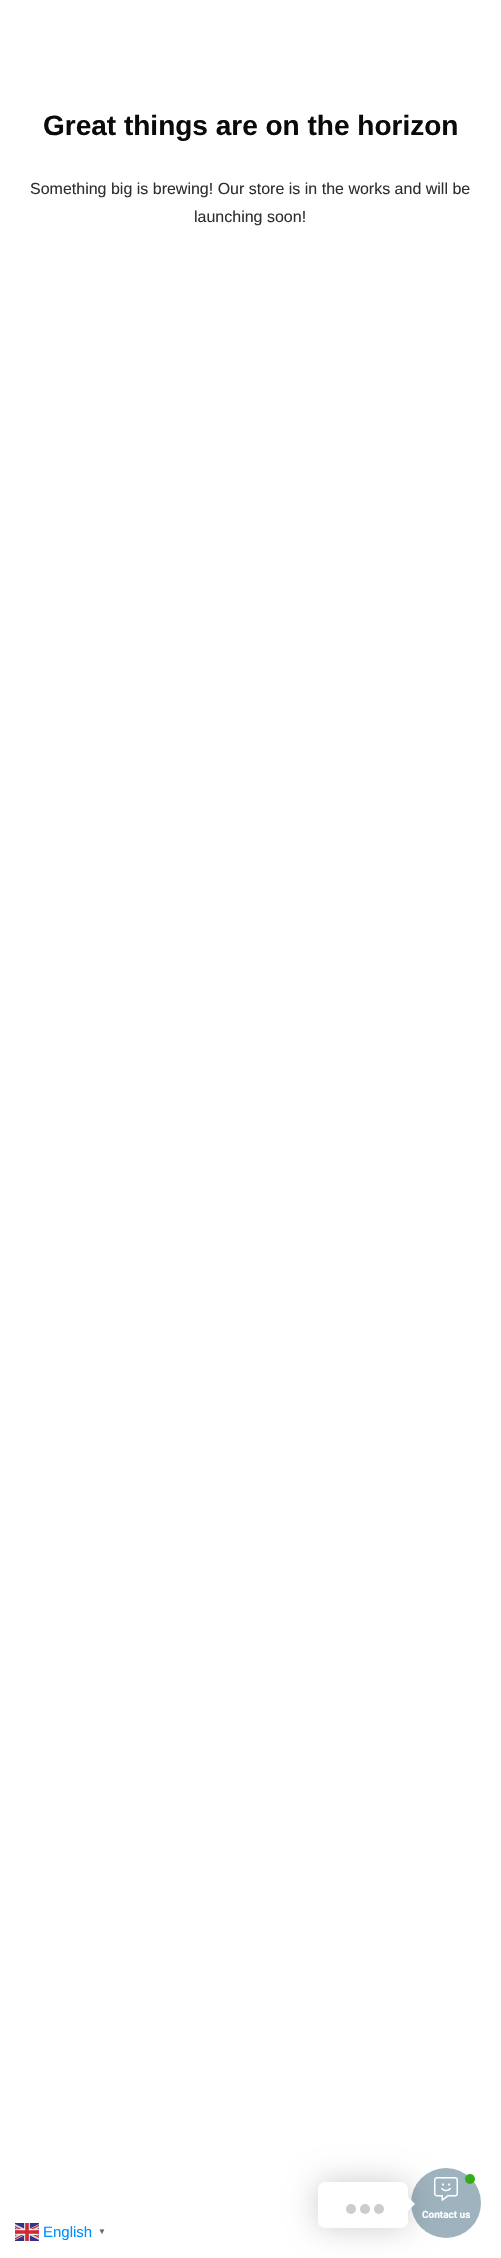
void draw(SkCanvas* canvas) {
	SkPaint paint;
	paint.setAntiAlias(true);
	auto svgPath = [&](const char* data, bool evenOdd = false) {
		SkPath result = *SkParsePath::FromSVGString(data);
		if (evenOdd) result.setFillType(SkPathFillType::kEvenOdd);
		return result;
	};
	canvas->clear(0xffffffff);
	SkFont f1(fontMgr->matchFamilyStyle("Liberation Sans", SkFontStyle::Bold()), 28);
	f1.setSubpixel(true);
	paint.setColor(0xff0a0a0a);
	canvas->drawString("Great things are on the horizon", 43, 135, f1, paint);
	SkFont f2(fontMgr->matchFamilyStyle("Liberation Sans", SkFontStyle::Normal()), 16);
	f2.setSubpixel(true);
	paint.setColor(0xff2f2f2f);
	canvas->drawString("Something big is brewing! Our store is in the works and will be", 30, 194, f2, paint);
	canvas->drawString("launching soon!", 194, 222, f2, paint);
	paint.setColor(0xff9eb3bd);
	canvas->drawCircle(446, 2203, 35, paint);
	canvas->drawImageRect(SkImages::DeferredFromEncodedData(SkData::MakeFromFileName("img1.png")), SkRect::MakeXYWH(434, 2177, 24, 24), SkSamplingOptions());
	paint.setColor(0x33000000);
	paint.setMaskFilter(SkMaskFilter::MakeBlur(kNormal_SkBlurStyle, 15));
	canvas->drawRoundRect(SkRect::MakeXYWH(318, 2182, 90, 46), 7, 7, paint);
	paint.setMaskFilter(nullptr);
	paint.setColor(0xffffffff);
	canvas->drawRoundRect(SkRect::MakeXYWH(318, 2182, 90, 46), 7, 7, paint);
	paint.setColor(0xffcccccc);
	canvas->drawCircle(351, 2209, 5, paint);
	canvas->drawCircle(365, 2209, 5, paint);
	canvas->drawCircle(379, 2209, 5, paint);
	paint.setColor(0xffffffff);
	canvas->drawPath(svgPath("M407 2212V2196L415 2204Z"), paint);
	paint.setColor(0xff35ac19);
	canvas->drawCircle(470, 2179, 5, paint);
	SkFont f3(fontMgr->matchFamilyStyle("Roboto", SkFontStyle::Bold()), 10);
	f3.setSubpixel(true);
	paint.setColor(0xffffffff);
	canvas->drawString("Contact us", 422, 2218, f3, paint);
	canvas->drawImageRect(SkImages::DeferredFromEncodedData(SkData::MakeFromFileName("img2.png")), SkRect::MakeXYWH(15, 2223, 24, 18), SkSamplingOptions());
	SkFont f4(fontMgr->matchFamilyStyle("Liberation Sans", SkFontStyle::Normal()), 15);
	f4.setSubpixel(true);
	paint.setColor(0xff008fff);
	canvas->drawString("English", 43, 2237, f4, paint);
	SkFont f5(fontMgr->matchFamilyStyle("Liberation Sans", SkFontStyle::Bold()), 8);
	f5.setSubpixel(true);
	paint.setColor(0xff666666);
	canvas->drawString("▼", 98, 2234, f5, paint);
}
